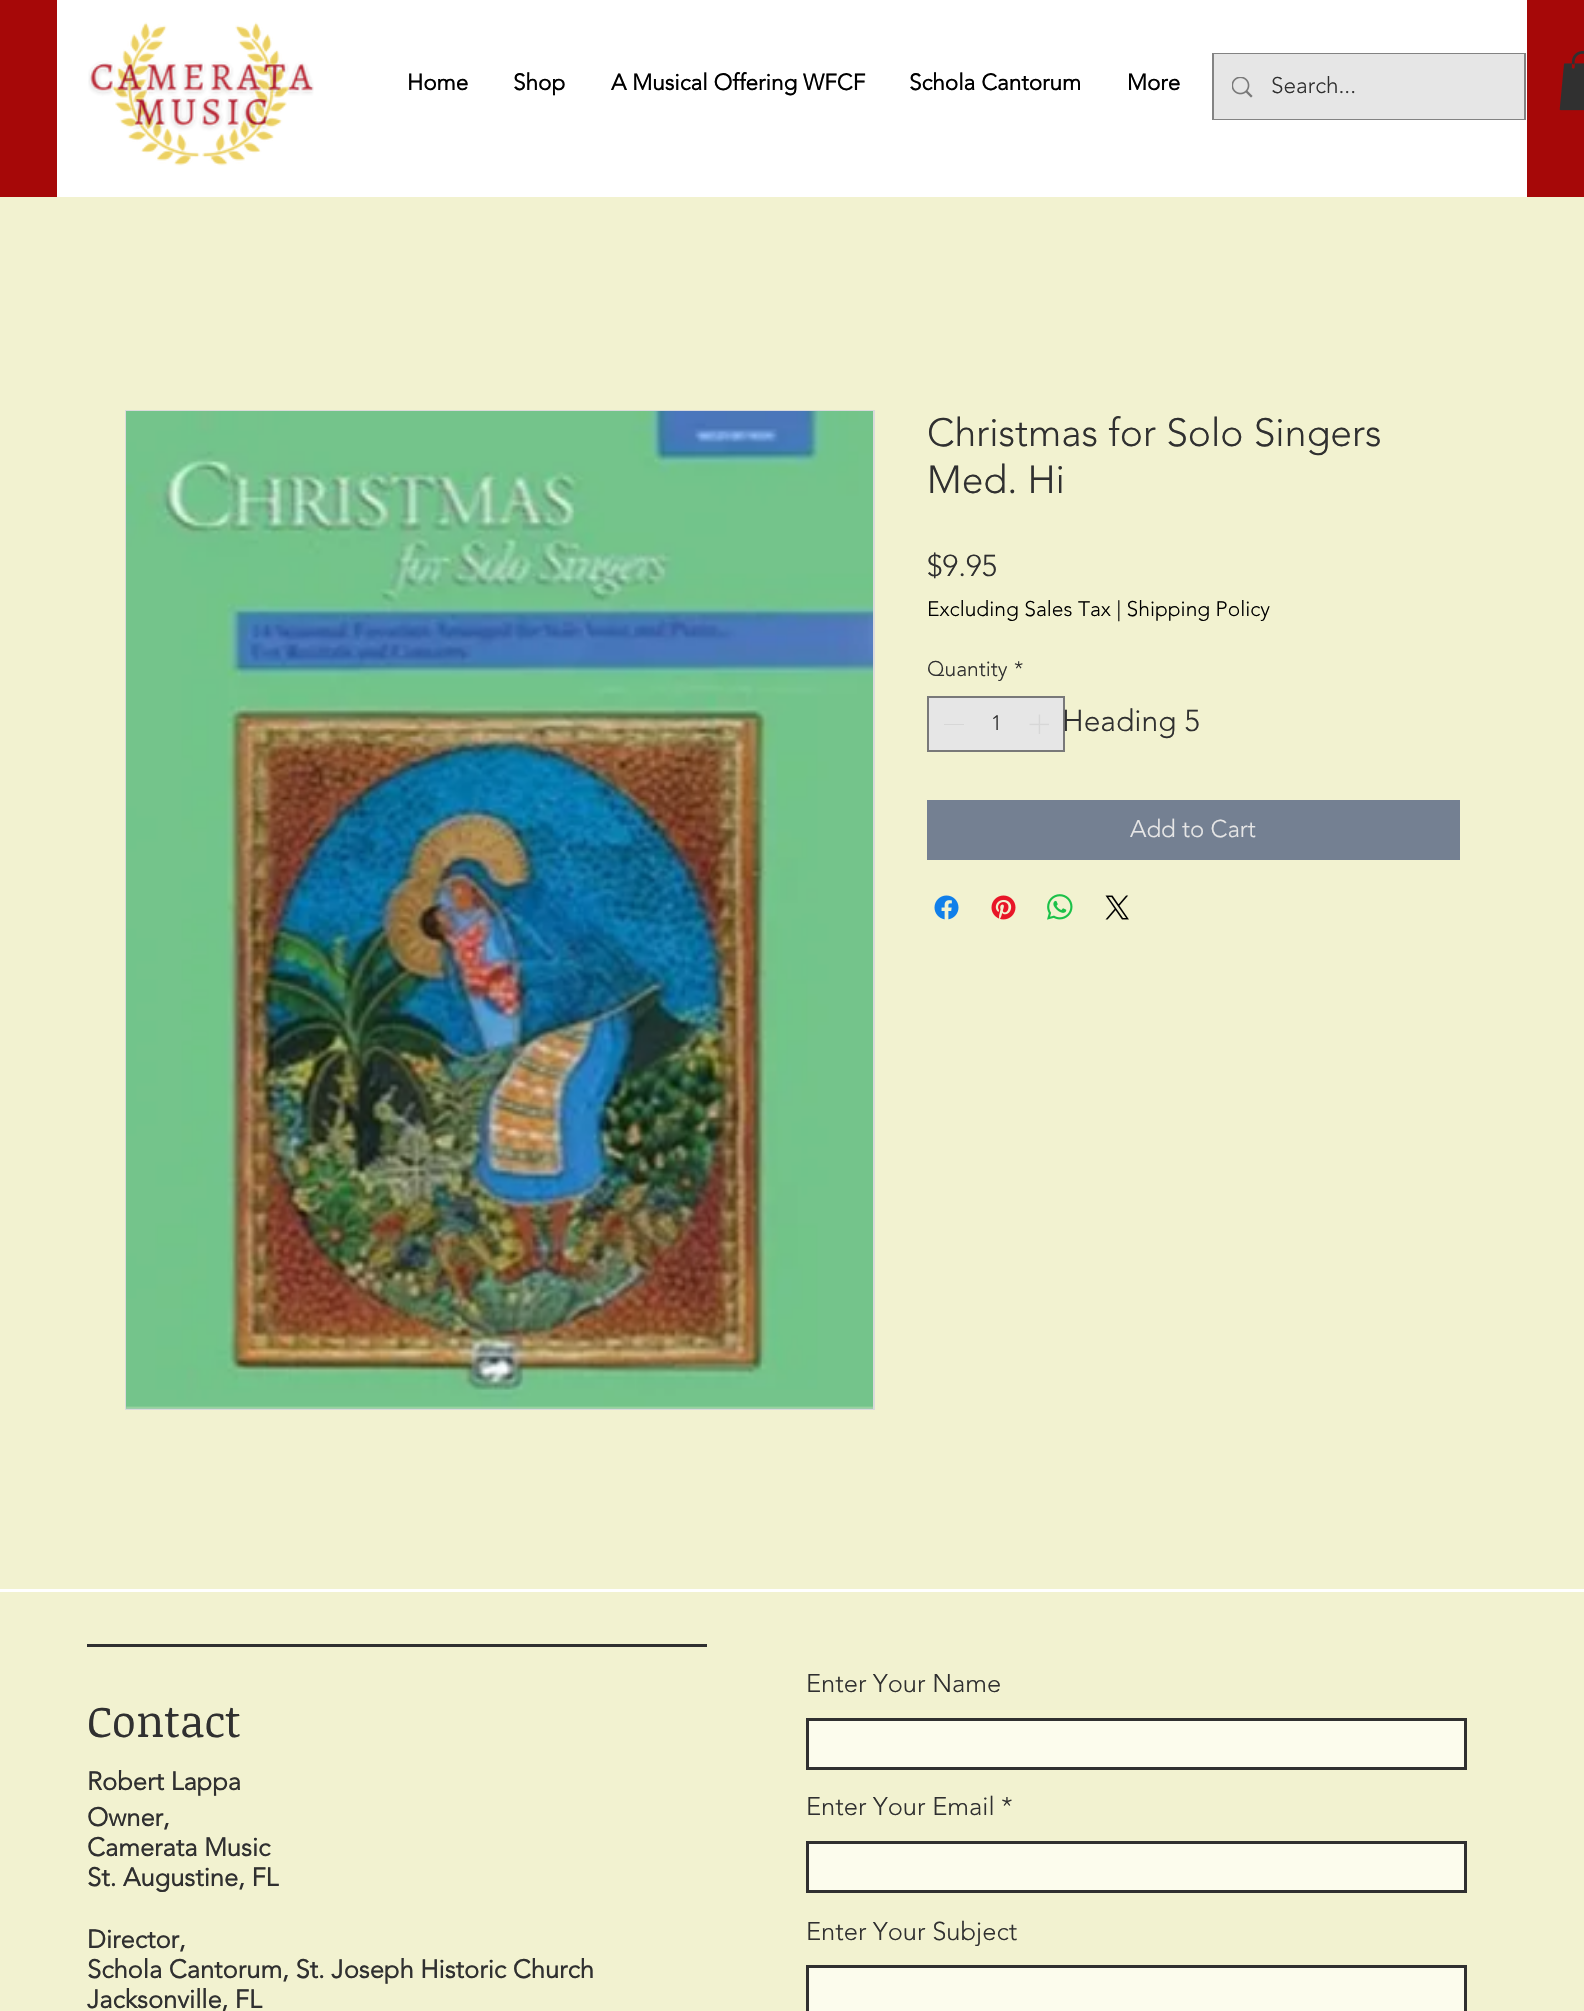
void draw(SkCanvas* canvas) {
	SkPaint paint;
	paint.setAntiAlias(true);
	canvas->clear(0xfff2f2d0);
	paint.setColor(0xffa60808);
	canvas->drawRect(SkRect::MakeXYWH(0, 0, 1584, 197), paint);
	paint.setColor(0xffffffff);
	canvas->drawRect(SkRect::MakeXYWH(57, 0, 1470, 197), paint);
	canvas->drawImageRect(SkImages::DeferredFromEncodedData(SkData::MakeFromFileName("img1.png")), SkRect::MakeXYWH(88, 22, 226, 144), SkSamplingOptions());
	SkFont f1(fontMgr->matchFamilyStyle("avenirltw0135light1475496", SkFontStyle::Bold()), 22.5);
	f1.setSubpixel(true);
	paint.setColor(0xff000000);
	canvas->drawString("Home", 407, 90, f1, paint);
	canvas->drawString("Shop", 513, 90, f1, paint);
	canvas->drawString("A Musical Offering WFCF", 611, 90, f1, paint);
	canvas->drawString("Schola Cantorum", 909, 90, f1, paint);
	canvas->drawString("More", 1127, 90, f1, paint);
	paint.setStroke(true);
	paint.setStrokeWidth(2);
	paint.setColor(0xff838383);
	canvas->drawRect(SkRect::MakeXYWH(1213, 54, 312, 65), paint);
	paint.setStroke(false);
	paint.setColor(0xffe6e6e6);
	canvas->drawRect(SkRect::MakeXYWH(1214, 54, 310, 65), paint);
	canvas->drawImageRect(SkImages::DeferredFromEncodedData(SkData::MakeFromFileName("img2.png")), SkRect::MakeXYWH(1232, 77, 21, 21), SkSamplingOptions());
	SkFont f2(fontMgr->matchFamilyStyle("avenirltw0135light1475496", SkFontStyle(300, SkFontStyle::kNormal_Width, SkFontStyle::kUpright_Slant)), 22.5);
	f2.setSubpixel(true);
	paint.setColor(0xff303030);
	canvas->drawString("Search...", 1271, 93, f2, paint);
	canvas->drawImageRect(SkImages::DeferredFromEncodedData(SkData::MakeFromFileName("img3.png")), SkRect::MakeXYWH(1559, 51, 25, 60), SkSamplingOptions());
	paint.setStroke(true);
	paint.setColor(0xffdbdbdb);
	canvas->drawRect(SkRect::MakeXYWH(126, 411, 748, 998), paint);
	canvas->drawImageRect(SkImages::DeferredFromEncodedData(SkData::MakeFromFileName("img4.png")), SkRect::MakeXYWH(126, 411, 747, 998), SkSamplingOptions());
	SkFont f3(fontMgr->matchFamilyStyle("avenirltw0135light1475496", SkFontStyle(300, SkFontStyle::kNormal_Width, SkFontStyle::kUpright_Slant)), 39);
	f3.setSubpixel(true);
	paint.setStroke(false);
	paint.setColor(0xff303030);
	canvas->drawString("Christmas for Solo Singers", 927, 446, f3, paint);
	canvas->drawString("Med. Hi", 927, 493, f3, paint);
	SkFont f4(fontMgr->matchFamilyStyle("avenirltw0135light1475496", SkFontStyle(300, SkFontStyle::kNormal_Width, SkFontStyle::kUpright_Slant)), 30);
	f4.setSubpixel(true);
	canvas->drawString("$9.95", 927, 576, f4, paint);
	SkFont f5(fontMgr->matchFamilyStyle("avenirltw0135light1475496", SkFontStyle(300, SkFontStyle::kNormal_Width, SkFontStyle::kUpright_Slant)), 21);
	f5.setSubpixel(true);
	paint.setColor(0xff000000);
	canvas->drawString("Excluding Sales Tax | Shipping Policy", 927, 616, f5, paint);
	paint.setColor(0xff303030);
	canvas->drawString("Quantity", 927, 676, f5, paint);
	canvas->drawString("*", 1014, 676, f5, paint);
	paint.setColor(0xffe6e6e6);
	canvas->drawRect(SkRect::MakeXYWH(928, 697, 136, 54), paint);
	paint.setStroke(true);
	paint.setColor(0xff797979);
	canvas->drawRect(SkRect::MakeXYWH(928, 697, 136, 54), paint);
	paint.setStroke(false);
	paint.setColor(0xffd7d7d7);
	canvas->drawRect(SkRect::MakeXYWH(944, 724, 20, 1), paint);
	paint.setColor(0xff303030);
	canvas->drawString("1", 991, 730, f5, paint);
	canvas->drawImageRect(SkImages::DeferredFromEncodedData(SkData::MakeFromFileName("img5.png")), SkRect::MakeXYWH(1029, 714, 20, 20), SkSamplingOptions());
	paint.setColor(0xff748092);
	canvas->drawRect(SkRect::MakeXYWH(927, 800, 533, 60), paint);
	SkFont f6(fontMgr->matchFamilyStyle("avenirltw0135light1475496", SkFontStyle(300, SkFontStyle::kNormal_Width, SkFontStyle::kUpright_Slant)), 24);
	f6.setSubpixel(true);
	paint.setColor(0xffe6e6e6);
	canvas->drawString("Add to Cart", 1130, 837, f6, paint);
	canvas->drawImageRect(SkImages::DeferredFromEncodedData(SkData::MakeFromFileName("img6.png")), SkRect::MakeXYWH(934, 895, 25, 25), SkSamplingOptions());
	canvas->drawImageRect(SkImages::DeferredFromEncodedData(SkData::MakeFromFileName("img7.png")), SkRect::MakeXYWH(991, 895, 25, 25), SkSamplingOptions());
	canvas->drawImageRect(SkImages::DeferredFromEncodedData(SkData::MakeFromFileName("img8.png")), SkRect::MakeXYWH(1047, 894, 26, 26), SkSamplingOptions());
	canvas->drawImageRect(SkImages::DeferredFromEncodedData(SkData::MakeFromFileName("img9.png")), SkRect::MakeXYWH(1105, 895, 24, 25), SkSamplingOptions());
	paint.setColor(0xff303030);
	canvas->drawString("Heading 5", 1062, 731, f4, paint);
	paint.setColor(0xffffffff);
	canvas->drawRect(SkRect::MakeXYWH(0, 1589, 1584, 3), paint);
	paint.setColor(0xff303030);
	canvas->drawRect(SkRect::MakeXYWH(87, 1644, 620, 3), paint);
	SkFont f7(fontMgr->matchFamilyStyle("Noticia Text", SkFontStyle::Normal()), 43.5);
	f7.setSubpixel(true);
	canvas->drawString("Contact", 87, 1737, f7, paint);
	SkFont f8(fontMgr->matchFamilyStyle("avenirltw0135light1475496", SkFontStyle(300, SkFontStyle::kNormal_Width, SkFontStyle::kUpright_Slant)), 25.5);
	f8.setSubpixel(true);
	canvas->drawString("Enter Your Name", 806, 1692, f8, paint);
	paint.setColor(0xfffcfced);
	canvas->drawRect(SkRect::MakeXYWH(807.5, 1719.5, 658, 49), paint);
	paint.setStroke(true);
	paint.setStrokeWidth(3);
	paint.setColor(0xff303030);
	canvas->drawRect(SkRect::MakeXYWH(807.5, 1719.5, 658, 49), paint);
	paint.setStroke(false);
	canvas->drawString("Enter Your Email *", 806, 1815, f8, paint);
	paint.setColor(0xfffcfced);
	canvas->drawRect(SkRect::MakeXYWH(807.5, 1842.5, 658, 49), paint);
	paint.setStroke(true);
	paint.setColor(0xff303030);
	canvas->drawRect(SkRect::MakeXYWH(807.5, 1842.5, 658, 49), paint);
	paint.setStroke(false);
	canvas->drawString("Enter Your Subject", 806, 1940, f8, paint);
	paint.setColor(0xfffcfced);
	canvas->drawRect(SkRect::MakeXYWH(807.5, 1966.5, 658, 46), paint);
	paint.setStroke(true);
	paint.setColor(0xff303030);
	canvas->drawRect(SkRect::MakeXYWH(807.5, 1966.5, 658, 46), paint);
	SkFont f9(fontMgr->matchFamilyStyle("avenirltw0135light1475496", SkFontStyle::Bold()), 25.5);
	f9.setSubpixel(true);
	paint.setStroke(false);
	canvas->drawString("Robert Lappa", 87, 1790, f9, paint);
	canvas->drawString("Owner,", 87, 1826, f9, paint);
	canvas->drawString("Camerata Music", 87, 1856, f9, paint);
	canvas->drawString("St. Augustine, FL", 87, 1886, f9, paint);
	canvas->drawString("Director,", 87, 1948, f9, paint);
	canvas->drawString("Schola Cantorum, St. Joseph Historic Church", 87, 1978, f9, paint);
	canvas->drawString("Jacksonville, FL", 87, 2008, f9, paint);
}
